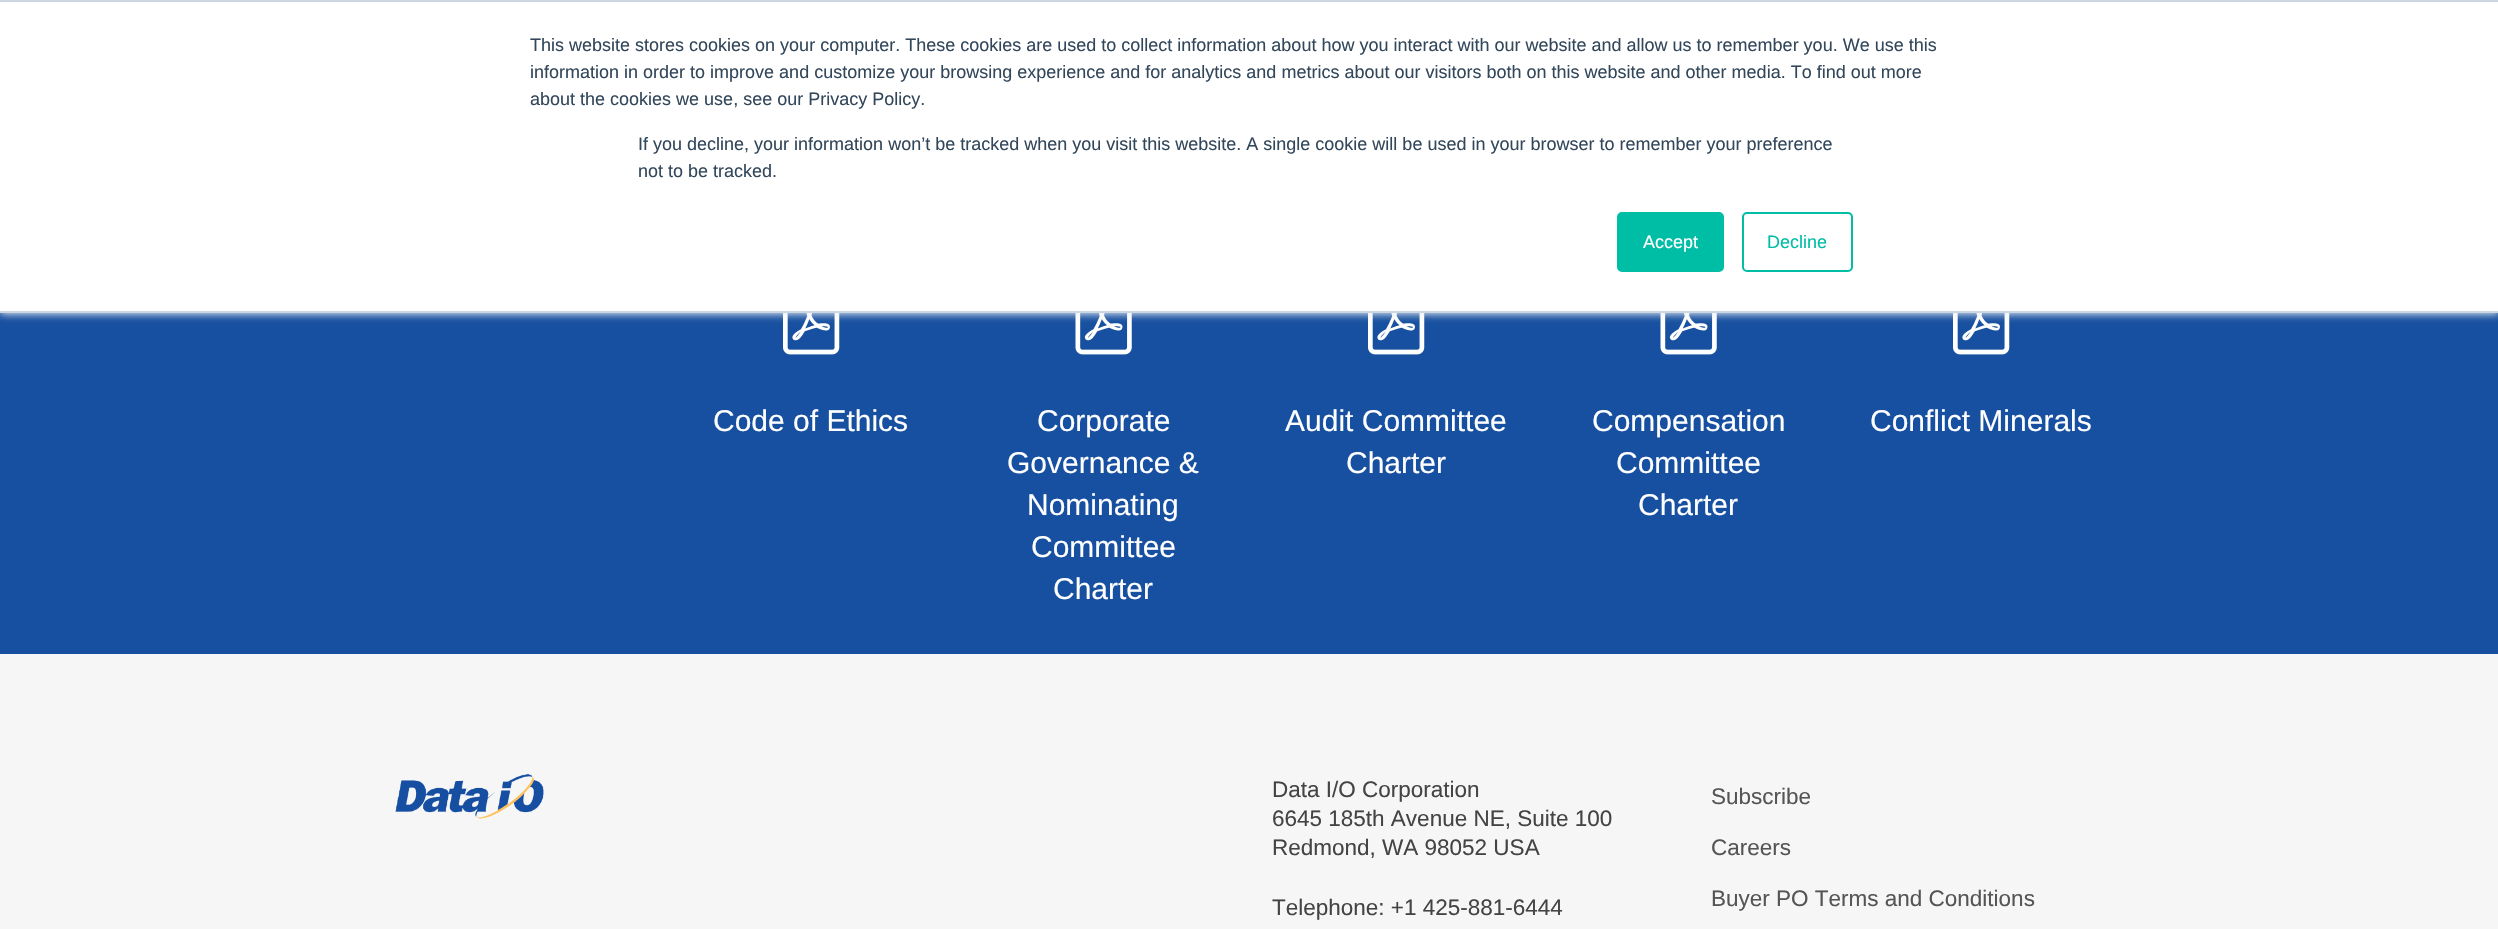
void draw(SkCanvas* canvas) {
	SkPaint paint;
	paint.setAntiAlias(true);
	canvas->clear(0xff1750a0);
	canvas->drawImageRect(SkImages::DeferredFromEncodedData(SkData::MakeFromFileName("img1.png")), SkRect::MakeXYWH(783, 313, 57, 42), SkSamplingOptions());
	canvas->drawImageRect(SkImages::DeferredFromEncodedData(SkData::MakeFromFileName("img2.png")), SkRect::MakeXYWH(1075, 313, 57, 42), SkSamplingOptions());
	canvas->drawImageRect(SkImages::DeferredFromEncodedData(SkData::MakeFromFileName("img1.png")), SkRect::MakeXYWH(1368, 313, 57, 42), SkSamplingOptions());
	canvas->drawImageRect(SkImages::DeferredFromEncodedData(SkData::MakeFromFileName("img2.png")), SkRect::MakeXYWH(1660, 313, 57, 42), SkSamplingOptions());
	canvas->drawImageRect(SkImages::DeferredFromEncodedData(SkData::MakeFromFileName("img1.png")), SkRect::MakeXYWH(1953, 313, 57, 42), SkSamplingOptions());
	paint.setColor(0xffeaf0f6);
	paint.setMaskFilter(SkMaskFilter::MakeBlur(kNormal_SkBlurStyle, 4));
	canvas->drawRect(SkRect::MakeXYWH(0, 2, 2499, 312), paint);
	paint.setMaskFilter(nullptr);
	paint.setColor(0xffffffff);
	canvas->drawRect(SkRect::MakeXYWH(0, 2, 2498, 309), paint);
	paint.setColor(0xffcbd6e2);
	canvas->drawRect(SkRect::MakeXYWH(0, 0, 2498, 2), paint);
	canvas->drawRect(SkRect::MakeXYWH(0, 311, 2498, 2), paint);
	SkFont f1(fontMgr->matchFamilyStyle("Liberation Sans", SkFontStyle::Normal()), 18);
	f1.setSubpixel(true);
	paint.setColor(0xff33475b);
	canvas->drawString("This website stores cookies on your computer. These cookies are used to collect information about how you interact with our website and allow us to remember you. We use this", 530, 51, f1, paint);
	canvas->drawString("information in order to improve and customize your browsing experience and for analytics and metrics about our visitors both on this website and other media. To find out more", 530, 78, f1, paint);
	canvas->drawString("about the cookies we use, see our Privacy Policy.", 530, 105, f1, paint);
	canvas->drawString("If you decline, your information won’t be tracked when you visit this website. A single cookie will be used in your browser to remember your preference", 638, 150, f1, paint);
	canvas->drawString("not to be tracked.", 638, 177, f1, paint);
	paint.setColor(0xff00bda5);
	canvas->drawRoundRect(SkRect::MakeXYWH(1618, 213, 105, 58), 4, 4, paint);
	paint.setStroke(true);
	paint.setStrokeWidth(2);
	canvas->drawRoundRect(SkRect::MakeXYWH(1618, 213, 105, 58), 4, 4, paint);
	paint.setStroke(false);
	paint.setColor(0xffffffff);
	canvas->drawString("Accept", 1643, 248, f1, paint);
	paint.setStroke(true);
	paint.setColor(0xff00bda5);
	canvas->drawRoundRect(SkRect::MakeXYWH(1743, 213, 109, 58), 4, 4, paint);
	paint.setStroke(false);
	canvas->drawString("Decline", 1767, 248, f1, paint);
	SkFont f2(fontMgr->matchFamilyStyle("Liberation Sans", SkFontStyle::Normal()), 30);
	f2.setSubpixel(true);
	paint.setColor(0xffffffff);
	canvas->drawString("Code of Ethics", 713, 431, f2, paint);
	canvas->drawString("Corporate", 1037, 431, f2, paint);
	canvas->drawString("Governance &", 1007, 473, f2, paint);
	canvas->drawString("Nominating", 1027, 515, f2, paint);
	canvas->drawString("Committee", 1031, 557, f2, paint);
	canvas->drawString("Charter", 1053, 599, f2, paint);
	canvas->drawString("Audit Committee", 1285, 431, f2, paint);
	canvas->drawString("Charter", 1346, 473, f2, paint);
	canvas->drawString("Compensation", 1592, 431, f2, paint);
	canvas->drawString("Committee", 1616, 473, f2, paint);
	canvas->drawString("Charter", 1638, 515, f2, paint);
	canvas->drawString("Conflict Minerals", 1870, 431, f2, paint);
	paint.setColor(0xfff6f6f6);
	canvas->drawRect(SkRect::MakeXYWH(0, 654, 2498, 275), paint);
	canvas->drawImageRect(SkImages::DeferredFromEncodedData(SkData::MakeFromFileName("img3.png")), SkRect::MakeXYWH(395, 774, 149, 45), SkSamplingOptions());
	SkFont f3(fontMgr->matchFamilyStyle("Liberation Sans", SkFontStyle::Normal()), 22.5);
	f3.setSubpixel(true);
	paint.setColor(0xff444444);
	canvas->drawString("Data I/O Corporation", 1272, 797, f3, paint);
	canvas->drawString("6645 185th Avenue NE, Suite 100", 1272, 826, f3, paint);
	canvas->drawString("Redmond, WA 98052 USA", 1272, 855, f3, paint);
	canvas->drawString("Telephone: +1 425-881-6444", 1272, 915, f3, paint);
	paint.setColor(0xff555555);
	canvas->drawString("Subscribe", 1711, 804, f3, paint);
	canvas->drawString("Careers", 1711, 855, f3, paint);
	canvas->drawString("Buyer PO Terms and Conditions", 1711, 906, f3, paint);
}
